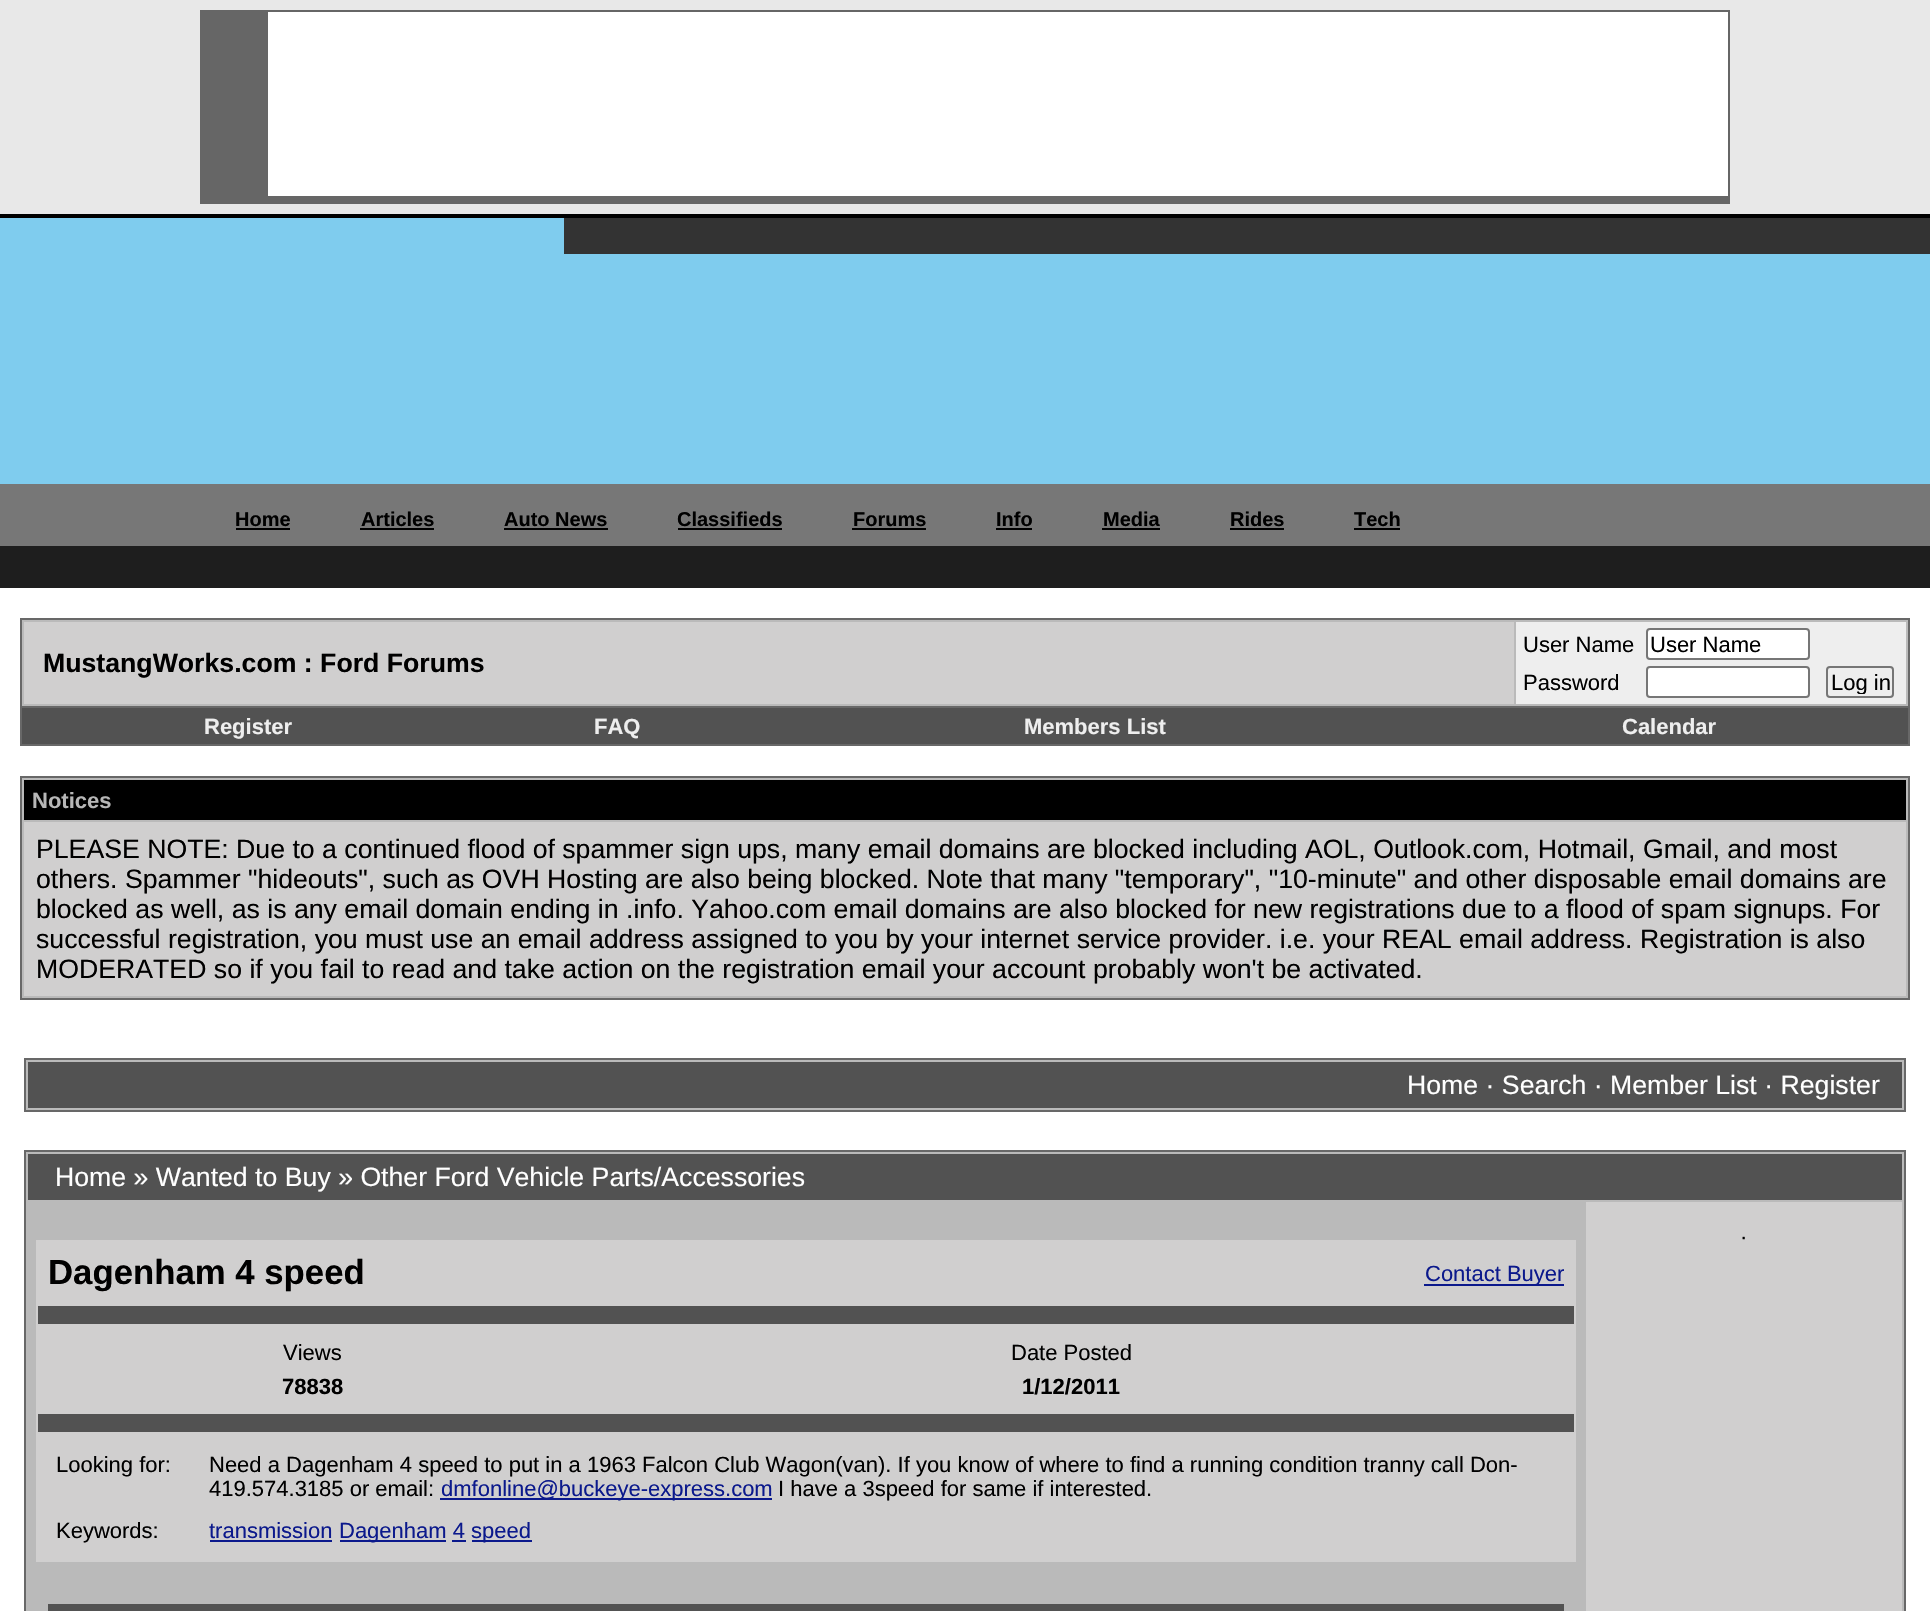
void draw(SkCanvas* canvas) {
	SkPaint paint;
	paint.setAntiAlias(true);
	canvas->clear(0xffffffff);
	paint.setColor(0xffe8e8e8);
	canvas->drawRect(SkRect::MakeXYWH(0, 0, 1930, 214), paint);
	paint.setColor(0xff666666);
	canvas->drawRect(SkRect::MakeXYWH(200, 10, 1530, 194), paint);
	paint.setColor(0xffffffff);
	canvas->drawRect(SkRect::MakeXYWH(268, 12, 1460, 184), paint);
	paint.setColor(0xff7fccee);
	canvas->drawRect(SkRect::MakeXYWH(0, 218, 1930, 266), paint);
	paint.setColor(0xff000000);
	canvas->drawRect(SkRect::MakeXYWH(0, 214, 1930, 4), paint);
	paint.setColor(0xff333333);
	canvas->drawRect(SkRect::MakeXYWH(564, 218, 1366, 36), paint);
	paint.setColor(0xff777777);
	canvas->drawRect(SkRect::MakeXYWH(0, 484, 1930, 62), paint);
	SkFont f1(fontMgr->matchFamilyStyle("Liberation Sans", SkFontStyle::Bold()), 20);
	f1.setSubpixel(true);
	paint.setColor(0xff000000);
	canvas->drawString("Home", 235, 526, f1, paint);
	canvas->drawRect(SkRect::MakeXYWH(236, 528, 54, 2), paint);
	canvas->drawString("Articles", 361, 526, f1, paint);
	canvas->drawRect(SkRect::MakeXYWH(360, 528, 74, 2), paint);
	canvas->drawString("Auto News", 504, 526, f1, paint);
	canvas->drawRect(SkRect::MakeXYWH(504, 528, 104, 2), paint);
	canvas->drawString("Classifieds", 677, 526, f1, paint);
	canvas->drawRect(SkRect::MakeXYWH(678, 528, 104, 2), paint);
	canvas->drawString("Forums", 853, 526, f1, paint);
	canvas->drawRect(SkRect::MakeXYWH(852, 528, 74, 2), paint);
	canvas->drawString("Info", 996, 526, f1, paint);
	canvas->drawRect(SkRect::MakeXYWH(996, 528, 36, 2), paint);
	canvas->drawString("Media", 1103, 526, f1, paint);
	canvas->drawRect(SkRect::MakeXYWH(1102, 528, 58, 2), paint);
	canvas->drawString("Rides", 1230, 526, f1, paint);
	canvas->drawRect(SkRect::MakeXYWH(1230, 528, 54, 2), paint);
	canvas->drawString("Tech", 1354, 526, f1, paint);
	canvas->drawRect(SkRect::MakeXYWH(1354, 528, 46, 2), paint);
	paint.setColor(0xff1e1e1e);
	canvas->drawRect(SkRect::MakeXYWH(0, 546, 1930, 42), paint);
	paint.setColor(0xffbababa);
	canvas->drawRect(SkRect::MakeXYWH(21, 619, 1888, 88), paint);
	paint.setStroke(true);
	paint.setStrokeWidth(2);
	paint.setColor(0xff686868);
	canvas->drawRect(SkRect::MakeXYWH(21, 619, 1888, 88), paint);
	paint.setStroke(false);
	paint.setColor(0xffd0cfcf);
	canvas->drawRect(SkRect::MakeXYWH(24, 622, 1490, 82), paint);
	SkFont f2(fontMgr->matchFamilyStyle("Liberation Sans", SkFontStyle::Bold()), 26.67);
	f2.setSubpixel(true);
	paint.setColor(0xff000000);
	canvas->drawString("MustangWorks.com : Ford Forums", 43, 672, f2, paint);
	paint.setColor(0xffeeeeee);
	canvas->drawRect(SkRect::MakeXYWH(1516, 622, 390, 82), paint);
	SkFont f3(fontMgr->matchFamilyStyle("Liberation Sans", SkFontStyle::Normal()), 22);
	f3.setSubpixel(true);
	paint.setColor(0xff000000);
	canvas->drawString("User Name", 1523, 652, f3, paint);
	paint.setColor(0xffffffff);
	canvas->drawRoundRect(SkRect::MakeXYWH(1647, 629, 162, 30), 3, 3, paint);
	paint.setStroke(true);
	paint.setColor(0xff767676);
	canvas->drawRoundRect(SkRect::MakeXYWH(1647, 629, 162, 30), 3, 3, paint);
	paint.setStroke(false);
	paint.setColor(0xff000000);
	canvas->drawString("User Name", 1650, 652, f3, paint);
	canvas->drawString("Password", 1523, 690, f3, paint);
	paint.setColor(0xffffffff);
	canvas->drawRoundRect(SkRect::MakeXYWH(1647, 667, 162, 30), 3, 3, paint);
	paint.setStroke(true);
	paint.setColor(0xff767676);
	canvas->drawRoundRect(SkRect::MakeXYWH(1647, 667, 162, 30), 3, 3, paint);
	canvas->drawRoundRect(SkRect::MakeXYWH(1827, 667, 66, 30), 3, 3, paint);
	canvas->save();
	canvas->clipRect(SkRect::MakeXYWH(1830, 670, 60, 24));
	paint.setStroke(false);
	paint.setColor(0xff000000);
	canvas->drawString("Log in", 1831, 690, f3, paint);
	canvas->restore();
	paint.setColor(0xff686868);
	canvas->drawRect(SkRect::MakeXYWH(1908, 708, 2, 38), paint);
	canvas->drawRect(SkRect::MakeXYWH(20, 744, 1890, 2), paint);
	canvas->drawRect(SkRect::MakeXYWH(20, 708, 2, 38), paint);
	paint.setColor(0xff525252);
	canvas->drawRect(SkRect::MakeXYWH(22, 708, 1886, 36), paint);
	SkFont f4(fontMgr->matchFamilyStyle("Liberation Sans", SkFontStyle::Bold()), 22);
	f4.setSubpixel(true);
	paint.setColor(0xffeeeeee);
	canvas->drawString("Register", 204, 734, f4, paint);
	canvas->drawString("FAQ", 594, 734, f4, paint);
	canvas->drawString("Members List", 1024, 734, f4, paint);
	canvas->drawString("Calendar", 1622, 734, f4, paint);
	paint.setColor(0xffbababa);
	canvas->drawRect(SkRect::MakeXYWH(21, 777, 1888, 222), paint);
	paint.setStroke(true);
	paint.setColor(0xff686868);
	canvas->drawRect(SkRect::MakeXYWH(21, 777, 1888, 222), paint);
	paint.setStroke(false);
	paint.setColor(0xff000000);
	canvas->drawRect(SkRect::MakeXYWH(24, 780, 1882, 40), paint);
	paint.setColor(0xffb7b7b7);
	canvas->drawString("Notices", 32, 808, f4, paint);
	paint.setColor(0xffd0cfcf);
	canvas->drawRect(SkRect::MakeXYWH(24, 822, 1882, 174), paint);
	SkFont f5(fontMgr->matchFamilyStyle("Liberation Sans", SkFontStyle::Normal()), 26.67);
	f5.setSubpixel(true);
	paint.setColor(0xff000000);
	canvas->drawString("PLEASE NOTE: Due to a continued flood of spammer sign ups, many email domains are blocked including AOL, Outlook.com, Hotmail, Gmail, and most", 36, 858, f5, paint);
	canvas->drawString("others. Spammer \"hideouts\", such as OVH Hosting are also being blocked. Note that many \"temporary\", \"10-minute\" and other disposable email domains are", 36, 888, f5, paint);
	canvas->drawString("blocked as well, as is any email domain ending in .info. Yahoo.com email domains are also blocked for new registrations due to a flood of spam signups. For", 36, 918, f5, paint);
	canvas->drawString("successful registration, you must use an email address assigned to you by your internet service provider. i.e. your REAL email address. Registration is also", 36, 948, f5, paint);
	canvas->drawString("MODERATED so if you fail to read and take action on the registration email your account probably won't be activated.", 36, 978, f5, paint);
	paint.setColor(0xffbababa);
	canvas->drawRect(SkRect::MakeXYWH(25, 1059, 1880, 52), paint);
	paint.setStroke(true);
	paint.setColor(0xff686868);
	canvas->drawRect(SkRect::MakeXYWH(25, 1059, 1880, 52), paint);
	paint.setStroke(false);
	paint.setColor(0xff525252);
	canvas->drawRect(SkRect::MakeXYWH(28, 1062, 1874, 46), paint);
	paint.setColor(0xffffffff);
	canvas->drawString("Home · Search · Member List · Register", 1407, 1094, f5, paint);
	paint.setColor(0xffbababa);
	canvas->drawRect(SkRect::MakeXYWH(25, 1151, 1880, 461), paint);
	paint.setStroke(true);
	paint.setColor(0xff686868);
	canvas->drawRect(SkRect::MakeXYWH(25, 1151, 1880, 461), paint);
	paint.setStroke(false);
	paint.setColor(0xff525252);
	canvas->drawRect(SkRect::MakeXYWH(28, 1154, 1874, 46), paint);
	paint.setColor(0xffffffff);
	canvas->drawString("Home » Wanted to Buy » Other Ford Vehicle Parts/Accessories", 55, 1186, f5, paint);
	paint.setColor(0xffd0cfcf);
	canvas->drawRect(SkRect::MakeXYWH(1586, 1202, 316, 409), paint);
	paint.setColor(0xff000000);
	canvas->drawString("·", 1740, 1244, f3, paint);
	paint.setColor(0xffd0cfcf);
	canvas->drawRect(SkRect::MakeXYWH(36, 1240, 1540, 322), paint);
	SkFont f6(fontMgr->matchFamilyStyle("Liberation Sans", SkFontStyle::Bold()), 34.75);
	f6.setSubpixel(true);
	paint.setColor(0xff000000);
	canvas->drawString("Dagenham 4 speed", 48, 1284, f6, paint);
	paint.setColor(0xff0b198c);
	canvas->drawRect(SkRect::MakeXYWH(1424, 1284, 140, 2), paint);
	canvas->drawString("Contact Buyer", 1425, 1281, f3, paint);
	paint.setColor(0xff525252);
	canvas->drawRect(SkRect::MakeXYWH(38, 1306, 1536, 18), paint);
	paint.setColor(0xff000000);
	canvas->drawString("Views", 283, 1360, f3, paint);
	canvas->drawString("Date Posted", 1011, 1360, f3, paint);
	canvas->drawString("78838", 282, 1394, f4, paint);
	canvas->drawString("1/12/2011", 1022, 1394, f4, paint);
	paint.setColor(0xff525252);
	canvas->drawRect(SkRect::MakeXYWH(38, 1414, 1536, 18), paint);
	paint.setColor(0xff000000);
	canvas->drawString("Looking for:", 56, 1472, f3, paint);
	canvas->drawString("Need a Dagenham 4 speed to put in a 1963 Falcon Club Wagon(van). If you know of where to find a running condition tranny call Don-", 209, 1472, f3, paint);
	canvas->drawString("419.574.3185 or email:", 209, 1496, f3, paint);
	paint.setColor(0xff0b198c);
	canvas->drawRect(SkRect::MakeXYWH(440, 1498, 332, 2), paint);
	canvas->drawString("dmfonline@buckeye-express.com", 441, 1496, f3, paint);
	paint.setColor(0xff000000);
	canvas->drawString("I have a 3speed for same if interested.", 778, 1496, f3, paint);
	canvas->drawString("Keywords:", 56, 1538, f3, paint);
	paint.setColor(0xff0b198c);
	canvas->drawString("transmission", 209, 1538, f3, paint);
	canvas->drawRect(SkRect::MakeXYWH(210, 1540, 122, 2), paint);
	canvas->drawRect(SkRect::MakeXYWH(340, 1540, 106, 2), paint);
	canvas->drawString("Dagenham 4", 339, 1538, f3, paint);
	canvas->drawRect(SkRect::MakeXYWH(452, 1540, 14, 2), paint);
	canvas->drawRect(SkRect::MakeXYWH(472, 1540, 60, 2), paint);
	canvas->drawString("speed", 471, 1538, f3, paint);
	paint.setColor(0xff525252);
	canvas->drawRect(SkRect::MakeXYWH(48, 1604, 1516, 7), paint);
}
